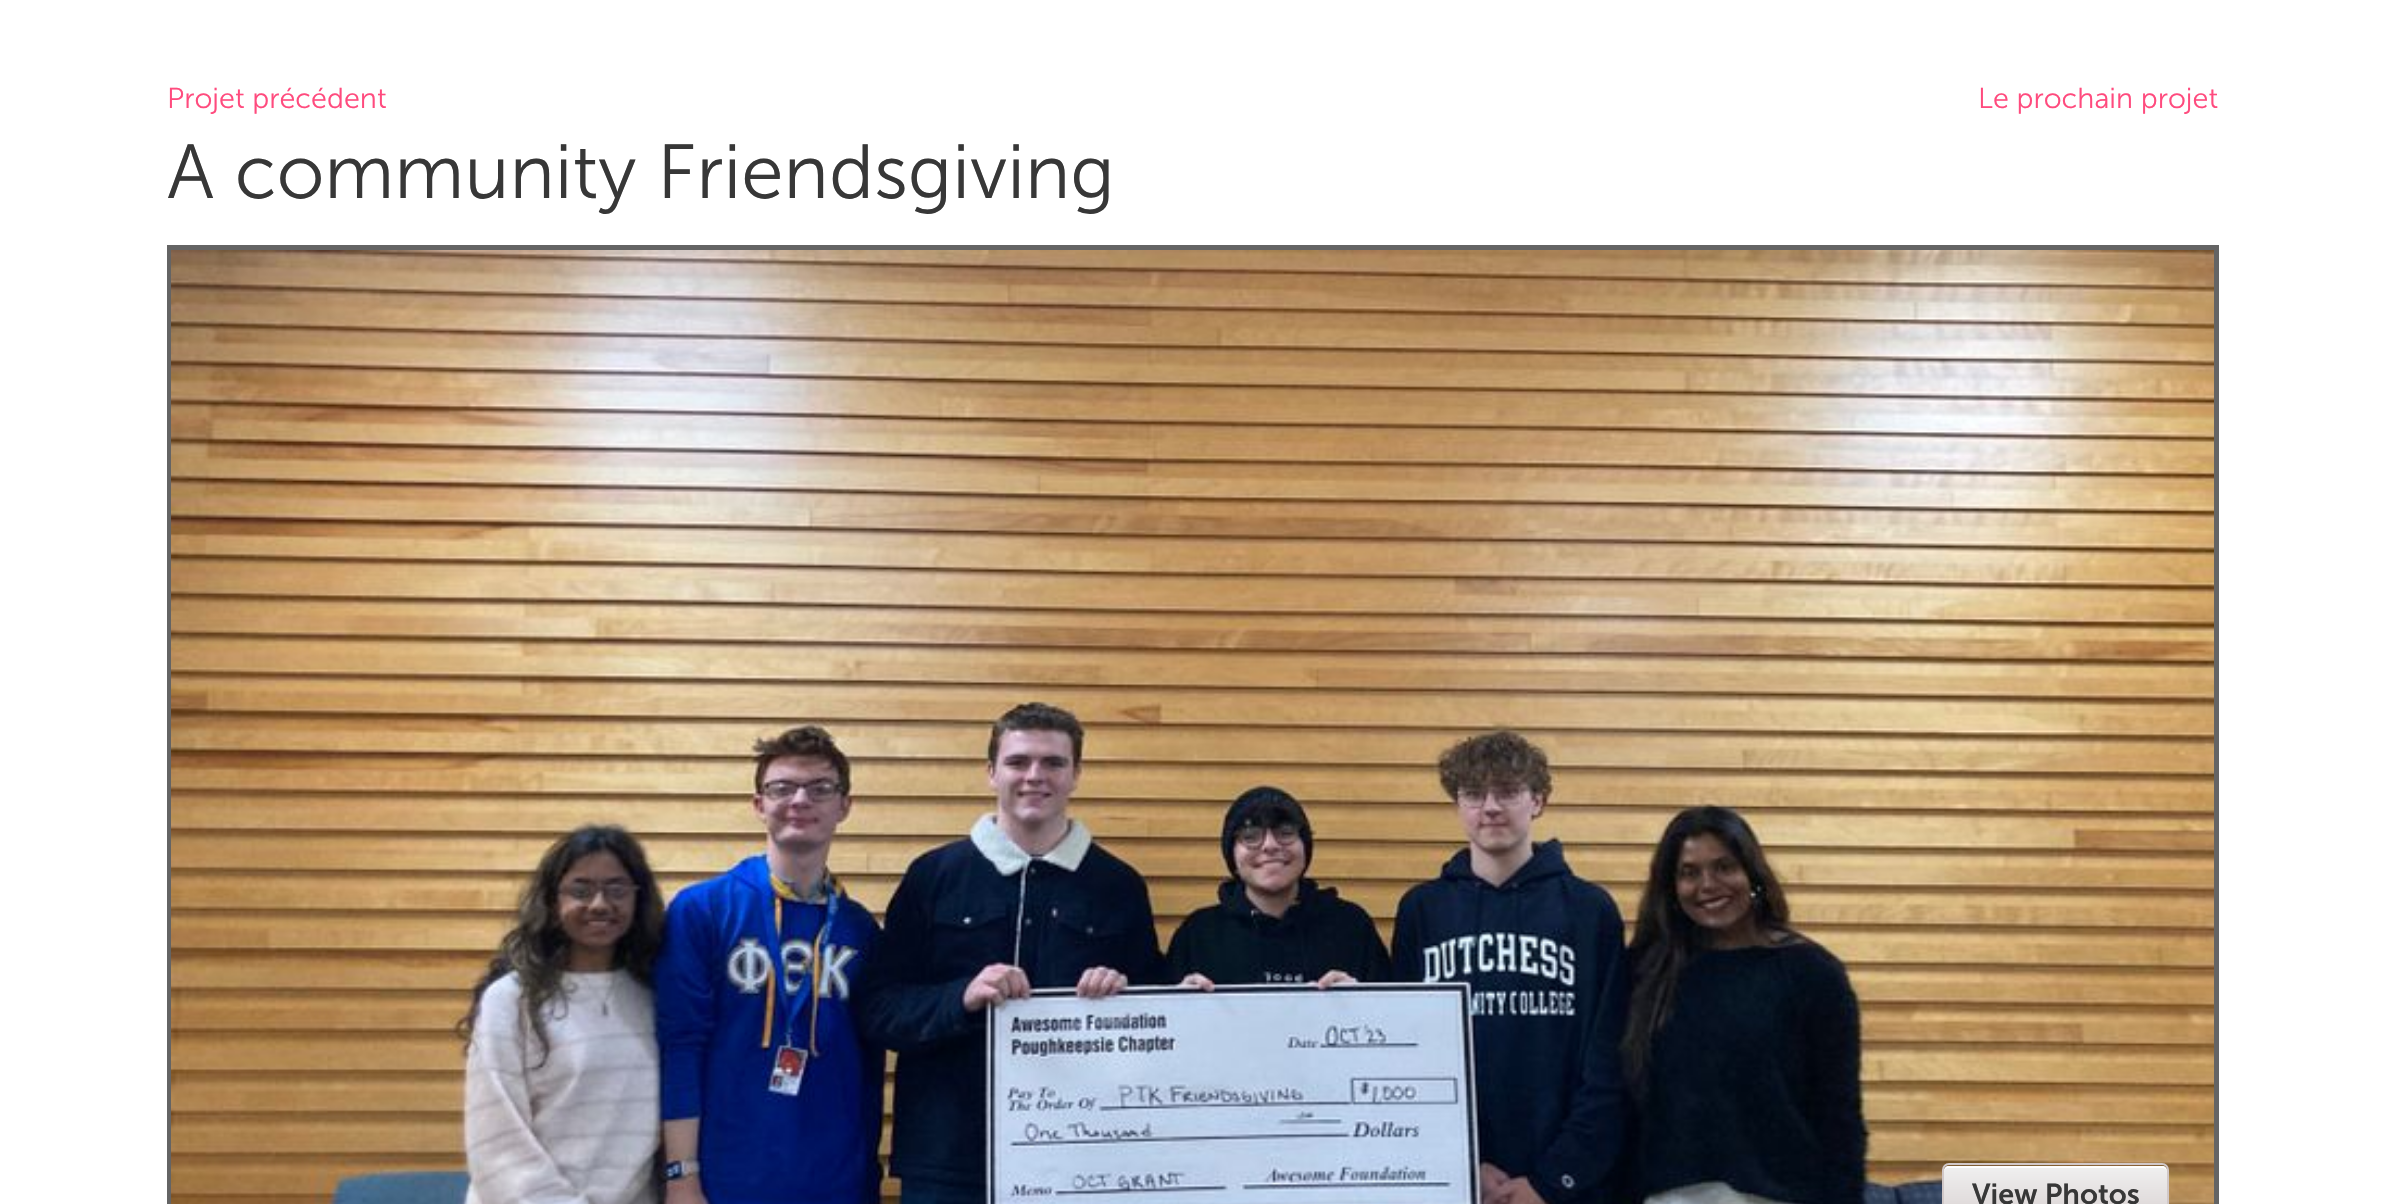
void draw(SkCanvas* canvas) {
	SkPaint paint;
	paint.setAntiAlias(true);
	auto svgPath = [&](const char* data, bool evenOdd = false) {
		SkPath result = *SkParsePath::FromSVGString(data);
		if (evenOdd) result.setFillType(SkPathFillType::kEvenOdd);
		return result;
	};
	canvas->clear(0xffffffff);
	SkFont f1(fontMgr->matchFamilyStyle("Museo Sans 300", SkFontStyle(300, SkFontStyle::kNormal_Width, SkFontStyle::kUpright_Slant)), 28.75);
	f1.setSubpixel(true);
	paint.setColor(0xffff4b7e);
	canvas->drawString("Projet précédent", 167, 108, f1, paint);
	canvas->drawString("Le prochain projet", 1978, 108, f1, paint);
	SkFont f2(fontMgr->matchFamilyStyle("Museo Sans 300", SkFontStyle(300, SkFontStyle::kNormal_Width, SkFontStyle::kUpright_Slant)), 76.5);
	f2.setSubpixel(true);
	paint.setColor(0xff373737);
	canvas->drawString("A community Friendsgiving", 167, 198, f2, paint);
	paint.setColor(0xff646464);
	canvas->drawRect(SkRect::MakeXYWH(167, 245, 2052, 959), paint);
	canvas->drawImageRect(SkImages::DeferredFromEncodedData(SkData::MakeFromFileName("img1.png")), SkRect::MakeXYWH(171, 250, 2043, 954), SkSamplingOptions());
	{
		const SkColor colors[] = {0xfff0f0f0, 0xffd8d0d0};
		const float stops[] = {0, 1};
		const SkPoint ends[] = {{2055, 1166}, {2055, 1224}};
		paint.setShader(SkGradientShader::MakeLinear(ends, colors, stops, 2, SkTileMode::kClamp));
		paint.setAlpha(255);
	}
	canvas->drawRoundRect(SkRect::MakeXYWH(1944, 1166, 223, 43), 5, 5, paint);
	paint.setShader(nullptr);
	paint.setColor(0xffffffff);
	canvas->drawPath(svgPath("M1948 1168H2162C2165 1168 2167 1170 2167 1172V1171C2167 1168 2165 1166 2162 1166H1949C1946 1166 1944 1168 1944 1171V1172C1944 1170 1946 1168 1948 1168Z"), paint);
	paint.setStroke(true);
	paint.setStrokeWidth(2);
	paint.setColor(0xffd1c8c8);
	canvas->drawRoundRect(SkRect::MakeXYWH(1943, 1164, 225, 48), 6, 6, paint);
	SkFont f3(fontMgr->matchFamilyStyle("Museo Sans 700", SkFontStyle(600, SkFontStyle::kNormal_Width, SkFontStyle::kUpright_Slant)), 28.75);
	f3.setSubpixel(true);
	paint.setStroke(false);
	paint.setColor(0xff373737);
	canvas->drawString("View Photos", 1972, 1204, f3, paint);
}
